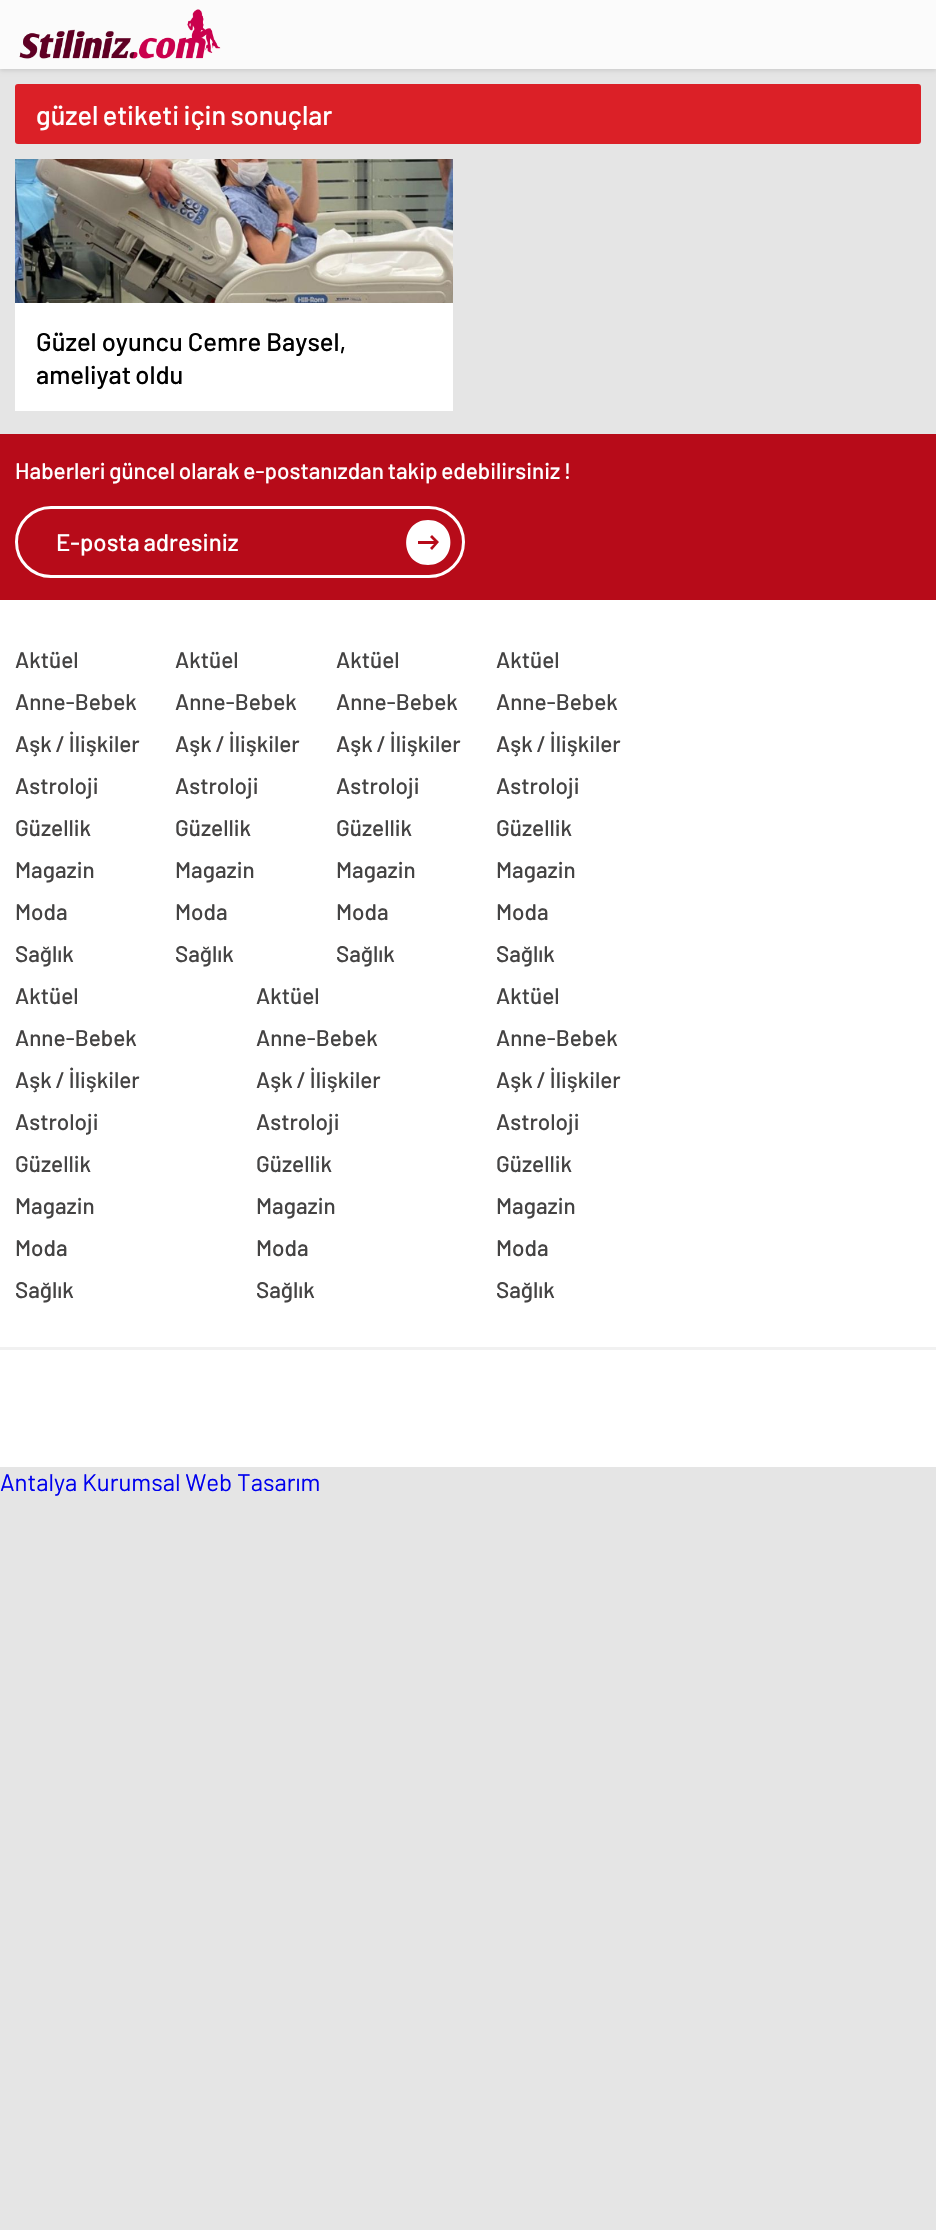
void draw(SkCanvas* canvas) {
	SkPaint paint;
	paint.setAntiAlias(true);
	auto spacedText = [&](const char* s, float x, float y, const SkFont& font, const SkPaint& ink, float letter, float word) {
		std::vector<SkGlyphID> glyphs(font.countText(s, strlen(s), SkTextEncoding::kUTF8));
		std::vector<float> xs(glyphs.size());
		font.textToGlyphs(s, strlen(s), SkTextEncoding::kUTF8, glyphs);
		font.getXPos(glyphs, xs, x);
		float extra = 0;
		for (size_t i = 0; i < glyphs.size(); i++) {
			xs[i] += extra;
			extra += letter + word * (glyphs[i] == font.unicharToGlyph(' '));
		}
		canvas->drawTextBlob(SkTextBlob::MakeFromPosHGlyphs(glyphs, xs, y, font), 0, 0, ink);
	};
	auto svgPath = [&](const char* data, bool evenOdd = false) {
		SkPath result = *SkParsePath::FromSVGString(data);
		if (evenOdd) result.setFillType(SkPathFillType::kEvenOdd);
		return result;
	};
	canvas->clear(0xffe5e5e5);
	paint.setColor(0x1a000000);
	paint.setMaskFilter(SkMaskFilter::MakeBlur(kNormal_SkBlurStyle, 2));
	canvas->drawRect(SkRect::MakeXYWH(0, 2, 936, 69), paint);
	paint.setMaskFilter(nullptr);
	paint.setColor(0xfffbfbfb);
	canvas->drawRect(SkRect::MakeXYWH(0, 0, 936, 69), paint);
	canvas->drawImageRect(SkImages::DeferredFromEncodedData(SkData::MakeFromFileName("img1.png")), SkRect::MakeXYWH(19, 9, 202, 50), SkSamplingOptions());
	paint.setColor(0xffdb2027);
	canvas->drawRoundRect(SkRect::MakeXYWH(15, 84, 906, 60), 3, 3, paint);
	SkFont f1(fontMgr->matchFamilyStyle("Barlow", SkFontStyle(500, SkFontStyle::kNormal_Width, SkFontStyle::kUpright_Slant)), 27);
	f1.setSubpixel(true);
	paint.setColor(0xffffffff);
	spacedText("güzel etiketi için sonuçlar", 36, 125, f1, paint, 0, -1);
	canvas->drawRect(SkRect::MakeXYWH(15, 303, 438, 108), paint);
	canvas->drawImageRect(SkImages::DeferredFromEncodedData(SkData::MakeFromFileName("img2.png")), SkRect::MakeXYWH(15, 159, 438, 144), SkSamplingOptions());
	SkFont f2(fontMgr->matchFamilyStyle("Barlow", SkFontStyle(500, SkFontStyle::kNormal_Width, SkFontStyle::kUpright_Slant)), 25.5);
	f2.setSubpixel(true);
	paint.setColor(0xff010101);
	canvas->drawString("Güzel oyuncu Cemre Baysel,", 36, 351, f2, paint);
	spacedText("ameliyat oldu", 36, 384, f2, paint, 0, -1);
	paint.setColor(0xffffffff);
	canvas->drawRect(SkRect::MakeXYWH(0, 600, 936, 867), paint);
	paint.setColor(0xffb70b19);
	canvas->drawRect(SkRect::MakeXYWH(0, 434, 936, 166), paint);
	SkFont f3(fontMgr->matchFamilyStyle("Barlow", SkFontStyle(500, SkFontStyle::kNormal_Width, SkFontStyle::kUpright_Slant)), 22.5);
	f3.setSubpixel(true);
	paint.setColor(0xffffffff);
	spacedText("Haberleri güncel olarak e-postanızdan takip edebilirsiniz !", 15, 479, f3, paint, 0, -0.75);
	paint.setStroke(true);
	paint.setStrokeWidth(3);
	canvas->drawRoundRect(SkRect::MakeXYWH(16.5, 507.5, 447, 69), 34.5, 34.5, paint);
	SkFont f4(fontMgr->matchFamilyStyle("Barlow", SkFontStyle(500, SkFontStyle::kNormal_Width, SkFontStyle::kUpright_Slant)), 24);
	f4.setSubpixel(true);
	paint.setStroke(false);
	spacedText("E-posta adresiniz", 56, 551, f4, paint, 0, -1);
	canvas->drawPath(svgPath("M428 565C399 565 399 520 428 520C458 520 458 565 428 565ZM418 541V544H434L430 548L432 550L439 542L432 535L430 537L434 541Z"), paint);
	paint.setColor(0xff444343);
	canvas->drawString("Aktüel", 15, 668, f3, paint);
	canvas->drawString("Anne-Bebek", 15, 710, f3, paint);
	spacedText("Aşk / İlişkiler", 15, 752, f3, paint, 0, -0.75);
	canvas->drawString("Astroloji", 15, 794, f3, paint);
	canvas->drawString("Güzellik", 15, 836, f3, paint);
	canvas->drawString("Magazin", 15, 878, f3, paint);
	canvas->drawString("Moda", 15, 920, f3, paint);
	canvas->drawString("Sağlık", 15, 962, f3, paint);
	canvas->drawString("Aktüel", 175, 668, f3, paint);
	canvas->drawString("Anne-Bebek", 175, 710, f3, paint);
	spacedText("Aşk / İlişkiler", 175, 752, f3, paint, 0, -0.75);
	canvas->drawString("Astroloji", 175, 794, f3, paint);
	canvas->drawString("Güzellik", 175, 836, f3, paint);
	canvas->drawString("Magazin", 175, 878, f3, paint);
	canvas->drawString("Moda", 175, 920, f3, paint);
	canvas->drawString("Sağlık", 175, 962, f3, paint);
	canvas->drawString("Aktüel", 336, 668, f3, paint);
	canvas->drawString("Anne-Bebek", 336, 710, f3, paint);
	spacedText("Aşk / İlişkiler", 336, 752, f3, paint, 0, -0.75);
	canvas->drawString("Astroloji", 336, 794, f3, paint);
	canvas->drawString("Güzellik", 336, 836, f3, paint);
	canvas->drawString("Magazin", 336, 878, f3, paint);
	canvas->drawString("Moda", 336, 920, f3, paint);
	canvas->drawString("Sağlık", 336, 962, f3, paint);
	canvas->drawString("Aktüel", 496, 668, f3, paint);
	canvas->drawString("Anne-Bebek", 496, 710, f3, paint);
	spacedText("Aşk / İlişkiler", 496, 752, f3, paint, 0, -0.75);
	canvas->drawString("Astroloji", 496, 794, f3, paint);
	canvas->drawString("Güzellik", 496, 836, f3, paint);
	canvas->drawString("Magazin", 496, 878, f3, paint);
	canvas->drawString("Moda", 496, 920, f3, paint);
	canvas->drawString("Sağlık", 496, 962, f3, paint);
	canvas->drawString("Aktüel", 15, 1004, f3, paint);
	canvas->drawString("Anne-Bebek", 15, 1046, f3, paint);
	spacedText("Aşk / İlişkiler", 15, 1088, f3, paint, 0, -0.75);
	canvas->drawString("Astroloji", 15, 1130, f3, paint);
	canvas->drawString("Güzellik", 15, 1172, f3, paint);
	canvas->drawString("Magazin", 15, 1214, f3, paint);
	canvas->drawString("Moda", 15, 1256, f3, paint);
	canvas->drawString("Sağlık", 15, 1298, f3, paint);
	canvas->drawString("Aktüel", 256, 1004, f3, paint);
	canvas->drawString("Anne-Bebek", 256, 1046, f3, paint);
	spacedText("Aşk / İlişkiler", 256, 1088, f3, paint, 0, -0.75);
	canvas->drawString("Astroloji", 256, 1130, f3, paint);
	canvas->drawString("Güzellik", 256, 1172, f3, paint);
	canvas->drawString("Magazin", 256, 1214, f3, paint);
	canvas->drawString("Moda", 256, 1256, f3, paint);
	canvas->drawString("Sağlık", 256, 1298, f3, paint);
	canvas->drawString("Aktüel", 496, 1004, f3, paint);
	canvas->drawString("Anne-Bebek", 496, 1046, f3, paint);
	spacedText("Aşk / İlişkiler", 496, 1088, f3, paint, 0, -0.75);
	canvas->drawString("Astroloji", 496, 1130, f3, paint);
	canvas->drawString("Güzellik", 496, 1172, f3, paint);
	canvas->drawString("Magazin", 496, 1214, f3, paint);
	canvas->drawString("Moda", 496, 1256, f3, paint);
	canvas->drawString("Sağlık", 496, 1298, f3, paint);
	paint.setColor(0xfff1f1f1);
	canvas->drawRect(SkRect::MakeXYWH(0, 1347, 936, 3), paint);
	SkFont f5(fontMgr->matchFamilyStyle("Barlow", SkFontStyle::Normal()), 24);
	f5.setSubpixel(true);
	paint.setColor(0xff0000ee);
	canvas->drawString("Antalya Kurumsal Web Tasarım", 0, 1491, f5, paint);
}
